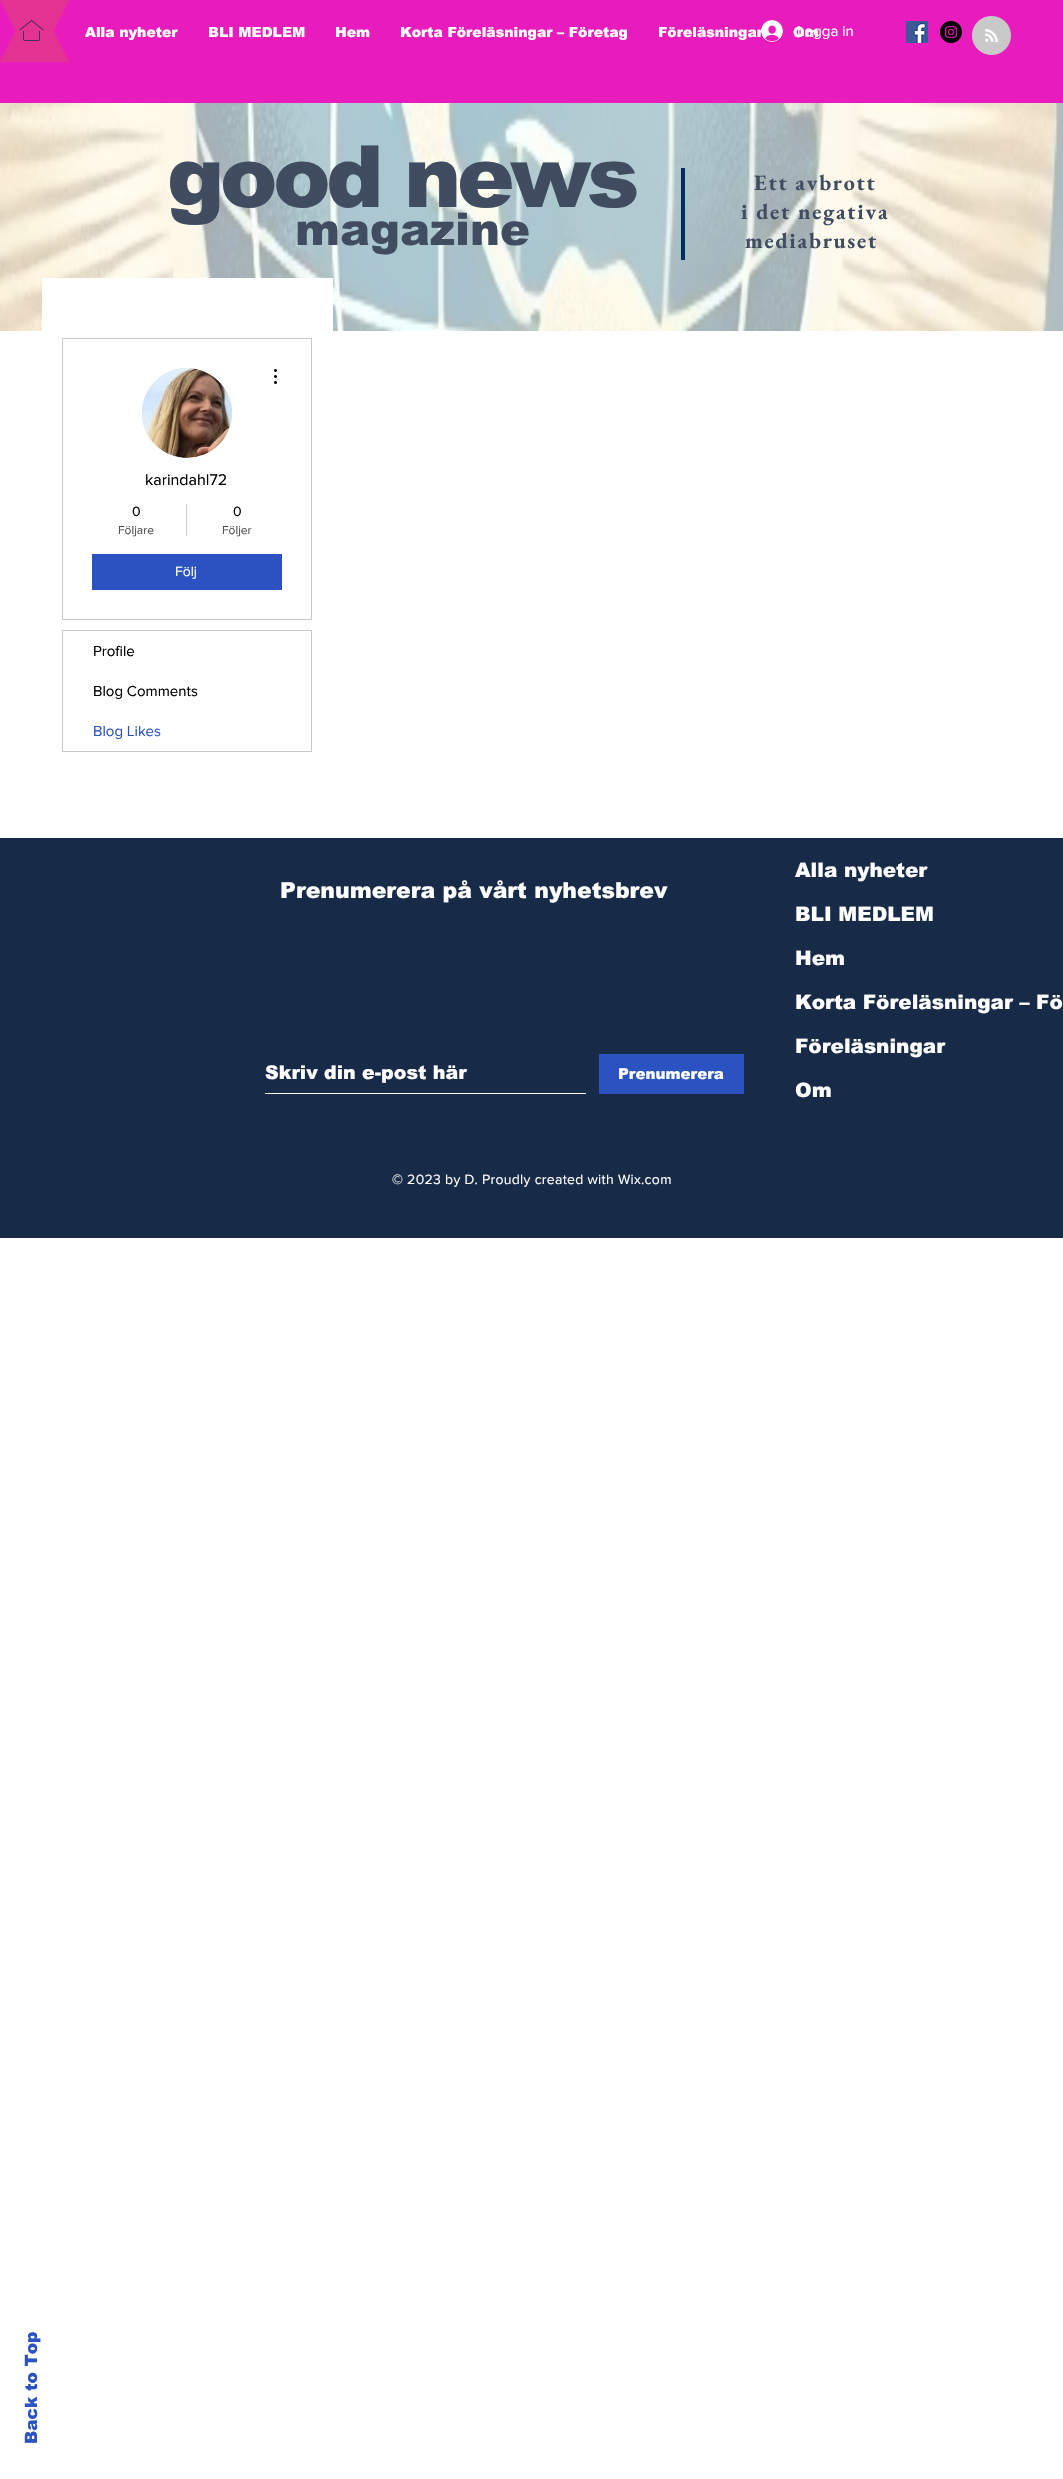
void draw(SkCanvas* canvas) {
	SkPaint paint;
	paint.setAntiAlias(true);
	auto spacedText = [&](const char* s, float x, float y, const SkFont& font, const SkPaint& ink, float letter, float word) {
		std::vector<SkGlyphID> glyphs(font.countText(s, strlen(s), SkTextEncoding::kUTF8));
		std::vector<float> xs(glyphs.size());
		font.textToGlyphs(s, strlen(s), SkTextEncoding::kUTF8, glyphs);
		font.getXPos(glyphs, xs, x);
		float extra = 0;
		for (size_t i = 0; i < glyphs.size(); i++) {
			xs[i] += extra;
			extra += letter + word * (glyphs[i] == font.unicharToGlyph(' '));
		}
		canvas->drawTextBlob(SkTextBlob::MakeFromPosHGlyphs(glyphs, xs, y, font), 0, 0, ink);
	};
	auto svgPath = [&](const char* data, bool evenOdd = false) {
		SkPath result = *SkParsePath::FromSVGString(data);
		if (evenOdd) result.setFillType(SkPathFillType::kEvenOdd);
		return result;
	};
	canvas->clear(0xffffffff);
	paint.setColor(0xffe81cbc);
	canvas->drawRect(SkRect::MakeXYWH(0, 0, 1063, 103), paint);
	canvas->save();
	canvas->clipRect(SkRect::MakeXYWH(0, 0, 35, 32));
	paint.setColor(0xffe43292);
	canvas->drawPath(svgPath("M0 0H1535L535 1000H500Z"), paint);
	canvas->restore();
	canvas->save();
	canvas->clipRect(SkRect::MakeXYWH(34, 0, 35, 32));
	canvas->drawPath(svgPath("M-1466 0H69L-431 1000H-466Z"), paint);
	canvas->restore();
	canvas->save();
	canvas->clipRect(SkRect::MakeXYWH(0, 31, 35, 31));
	canvas->drawPath(svgPath("M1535 62H0L500-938H535Z"), paint);
	canvas->restore();
	canvas->save();
	canvas->clipRect(SkRect::MakeXYWH(34, 31, 35, 31));
	canvas->drawPath(svgPath("M69 62H-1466L-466-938H-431Z"), paint);
	canvas->restore();
	canvas->drawImageRect(SkImages::DeferredFromEncodedData(SkData::MakeFromFileName("img1.png")), SkRect::MakeXYWH(19, 20, 25, 21), SkSamplingOptions());
	SkFont f1(fontMgr->matchFamilyStyle("arial", SkFontStyle(900, SkFontStyle::kNormal_Width, SkFontStyle::kUpright_Slant)), 14);
	f1.setSubpixel(true);
	paint.setColor(0xffffffff);
	canvas->drawString("Alla nyheter", 85, 37, f1, paint);
	canvas->drawString("BLI MEDLEM", 208, 37, f1, paint);
	canvas->drawString("Hem", 335, 37, f1, paint);
	canvas->drawString("Korta Föreläsningar – Företag", 400, 37, f1, paint);
	canvas->drawString("Föreläsningar", 658, 37, f1, paint);
	canvas->drawString("Om", 793, 37, f1, paint);
	canvas->drawImageRect(SkImages::DeferredFromEncodedData(SkData::MakeFromFileName("img2.png")), SkRect::MakeXYWH(761, 20, 22, 22), SkSamplingOptions());
	SkFont f2(fontMgr->matchFamilyStyle("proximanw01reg", SkFontStyle::Normal()), 15);
	f2.setSubpixel(true);
	canvas->drawString("Logga in", 797, 36, f2, paint);
	canvas->drawImageRect(SkImages::DeferredFromEncodedData(SkData::MakeFromFileName("img3.png")), SkRect::MakeXYWH(906, 21, 22, 22), SkSamplingOptions());
	canvas->drawImageRect(SkImages::DeferredFromEncodedData(SkData::MakeFromFileName("img4.png")), SkRect::MakeXYWH(940, 21, 22, 22), SkSamplingOptions());
	canvas->drawImageRect(SkImages::DeferredFromEncodedData(SkData::MakeFromFileName("img5.png")), SkRect::MakeXYWH(972, 16, 39, 39), SkSamplingOptions());
	canvas->drawImageRect(SkImages::DeferredFromEncodedData(SkData::MakeFromFileName("img6.png")), SkRect::MakeXYWH(0, 103, 1063, 228), SkSamplingOptions());
	SkFont f3(fontMgr->matchFamilyStyle("arial", SkFontStyle(900, SkFontStyle::kNormal_Width, SkFontStyle::kUpright_Slant)), 86);
	f3.setSubpixel(true);
	paint.setColor(0xff404d61);
	spacedText("good news", 167, 207, f3, paint, -4.25, 0);
	SkFont f4(fontMgr->matchFamilyStyle("arial", SkFontStyle(900, SkFontStyle::kNormal_Width, SkFontStyle::kUpright_Slant)), 45);
	f4.setSubpixel(true);
	canvas->drawString("magazine", 295, 245, f4, paint);
	paint.setColor(0xff002e5d);
	canvas->drawRect(SkRect::MakeXYWH(681, 168, 4, 92), paint);
	SkFont f5(fontMgr->matchFamilyStyle("EB Garamond", SkFontStyle::Bold()), 22);
	f5.setSubpixel(true);
	paint.setColor(0xff404d61);
	spacedText("Ett avbrott", 754, 190, f5, paint, 1.75, 0);
	spacedText("i det negativa", 741, 219, f5, paint, 1.75, 0);
	spacedText("mediabruset", 745, 248, f5, paint, 1.75, 0);
	paint.setColor(0xffffffff);
	canvas->drawRect(SkRect::MakeXYWH(42, 278, 291, 53), paint);
	paint.setStroke(true);
	paint.setStrokeWidth(1);
	paint.setColor(0xffc9c9c9);
	canvas->drawRect(SkRect::MakeXYWH(62.5, 338.5, 249, 281), paint);
	paint.setStroke(false);
	paint.setColor(0xffd8d8d8);
	canvas->drawCircle(187, 413, 45, paint);
	canvas->drawImageRect(SkImages::DeferredFromEncodedData(SkData::MakeFromFileName("img7.png")), SkRect::MakeXYWH(142, 368, 90, 90), SkSamplingOptions());
	canvas->drawImageRect(SkImages::DeferredFromEncodedData(SkData::MakeFromFileName("img8.png")), SkRect::MakeXYWH(274, 369, 3, 15), SkSamplingOptions());
	SkFont f6(fontMgr->matchFamilyStyle("proximanw01reg", SkFontStyle::Normal()), 16);
	f6.setSubpixel(true);
	paint.setColor(0xff000000);
	canvas->drawString("karindahl72", 145, 485, f6, paint);
	SkFont f7(fontMgr->matchFamilyStyle("proximanw01reg", SkFontStyle::Normal()), 14);
	f7.setSubpixel(true);
	canvas->drawString("0", 132, 516, f7, paint);
	SkFont f8(fontMgr->matchFamilyStyle("proximanw01reg", SkFontStyle::Normal()), 12);
	f8.setSubpixel(true);
	paint.setColor(0xff4d4d4d);
	canvas->drawString("Följare", 118, 534, f8, paint);
	paint.setColor(0xffcccccc);
	canvas->drawRect(SkRect::MakeXYWH(186, 504, 1, 32), paint);
	paint.setColor(0xff000000);
	canvas->drawString("0", 233, 516, f7, paint);
	paint.setColor(0xff4d4d4d);
	canvas->drawString("Följer", 222, 534, f8, paint);
	paint.setColor(0xff2a53c1);
	canvas->drawRect(SkRect::MakeXYWH(92, 554, 190, 36), paint);
	paint.setColor(0xffffffff);
	canvas->drawString("Följ", 175, 576, f7, paint);
	paint.setStroke(true);
	paint.setColor(0xffc9c9c9);
	canvas->drawRect(SkRect::MakeXYWH(62.5, 630.5, 249, 121), paint);
	paint.setStroke(false);
	paint.setColor(0xff000000);
	canvas->drawString("Profile", 93, 656, f2, paint);
	canvas->drawString("Blog Comments", 93, 696, f2, paint);
	paint.setColor(0xff2a53c1);
	canvas->drawString("Blog Likes", 93, 736, f2, paint);
	paint.setColor(0xff172a47);
	canvas->drawRect(SkRect::MakeXYWH(0, 838, 1063, 400), paint);
	SkFont f9(fontMgr->matchFamilyStyle("arial", SkFontStyle(900, SkFontStyle::kNormal_Width, SkFontStyle::kUpright_Slant)), 22);
	f9.setSubpixel(true);
	paint.setColor(0xffffffff);
	canvas->drawString("Prenumerera på vårt nyhetsbrev", 280, 898, f9, paint);
	SkFont f10(fontMgr->matchFamilyStyle("arial", SkFontStyle(900, SkFontStyle::kNormal_Width, SkFontStyle::kUpright_Slant)), 20);
	f10.setSubpixel(true);
	canvas->drawString("Alla nyheter", 795, 877, f10, paint);
	canvas->drawString("BLI MEDLEM", 795, 921, f10, paint);
	canvas->drawString("Hem", 795, 965, f10, paint);
	canvas->drawString("Korta Föreläsningar – Fö", 795, 1009, f10, paint);
	canvas->drawString("Föreläsningar", 795, 1053, f10, paint);
	canvas->drawString("Om", 795, 1097, f10, paint);
	canvas->drawRect(SkRect::MakeXYWH(265, 1093, 321, 1), paint);
	SkFont f11(fontMgr->matchFamilyStyle("arial", SkFontStyle(900, SkFontStyle::kNormal_Width, SkFontStyle::kUpright_Slant)), 19);
	f11.setSubpixel(true);
	canvas->drawString("Skriv din e-post här", 265, 1079, f11, paint);
	paint.setColor(0xff2a53c1);
	canvas->drawRect(SkRect::MakeXYWH(599, 1054, 145, 40), paint);
	SkFont f12(fontMgr->matchFamilyStyle("arial", SkFontStyle(900, SkFontStyle::kNormal_Width, SkFontStyle::kUpright_Slant)), 15);
	f12.setSubpixel(true);
	paint.setColor(0xffffffff);
	canvas->drawString("Prenumerera", 618, 1079, f12, paint);
	spacedText("© 2023 by D. Proudly created with Wix.com", 392, 1184, f7, paint, 0.3, 0);
	SkFont f13(fontMgr->matchFamilyStyle("arial", SkFontStyle(900, SkFontStyle::kNormal_Width, SkFontStyle::kUpright_Slant)), 17);
	f13.setSubpixel(true);
	paint.setColor(0xff2a53c1);
	canvas->save();
	canvas->rotate(-90, 37, 2444);
	canvas->drawString("Back to Top", 37, 2444, f13, paint);
	canvas->restore();
}
